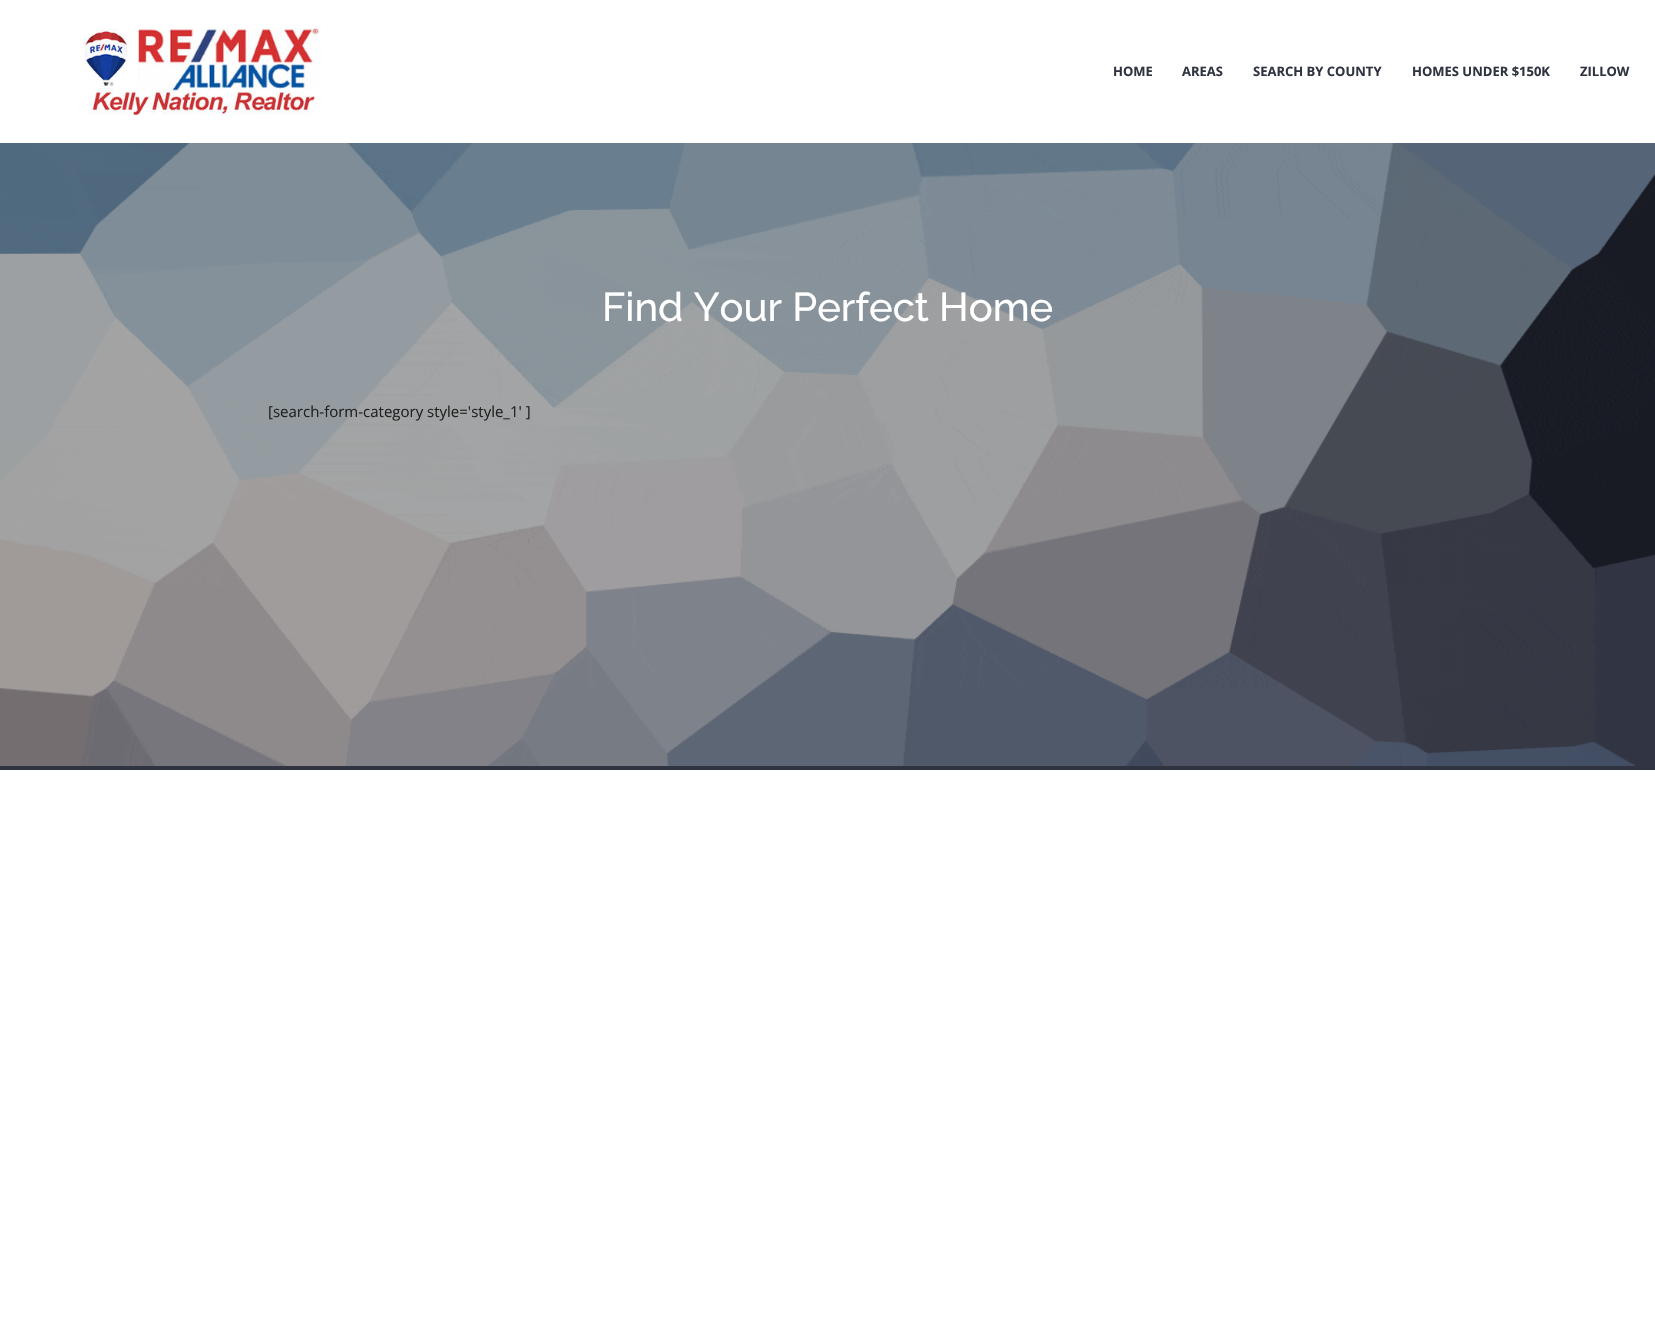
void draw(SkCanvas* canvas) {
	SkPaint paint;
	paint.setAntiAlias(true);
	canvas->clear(0xffffffff);
	canvas->drawImageRect(SkImages::DeferredFromEncodedData(SkData::MakeFromFileName("img1.png")), SkRect::MakeXYWH(82, 28, 239, 87), SkSamplingOptions());
	SkFont f1(fontMgr->matchFamilyStyle("Open Sans", SkFontStyle::Bold()), 13);
	f1.setSubpixel(true);
	paint.setColor(0xff303441);
	canvas->drawString("HOME", 1113, 76, f1, paint);
	canvas->drawString("AREAS", 1182, 76, f1, paint);
	canvas->drawString("SEARCH BY COUNTY", 1253, 76, f1, paint);
	canvas->drawString("HOMES UNDER $150K", 1412, 76, f1, paint);
	canvas->drawString("ZILLOW", 1580, 76, f1, paint);
	canvas->drawImageRect(SkImages::DeferredFromEncodedData(SkData::MakeFromFileName("img2.png")), SkRect::MakeXYWH(0, 143, 1655, 623), SkSamplingOptions());
	SkFont f2(fontMgr->matchFamilyStyle("Raleway", SkFontStyle(500, SkFontStyle::kNormal_Width, SkFontStyle::kUpright_Slant)), 40);
	f2.setSubpixel(true);
	paint.setColor(0xffffffff);
	canvas->drawString("Find Your Perfect Home", 602, 321, f2, paint);
	SkFont f3(fontMgr->matchFamilyStyle("Open Sans", SkFontStyle::Normal()), 15);
	f3.setSubpixel(true);
	paint.setColor(0xff222222);
	canvas->drawString("[search-form-category style='style_1' ]", 268, 417, f3, paint);
	paint.setColor(0xff303441);
	canvas->drawRect(SkRect::MakeXYWH(0, 766, 1655, 4), paint);
}
